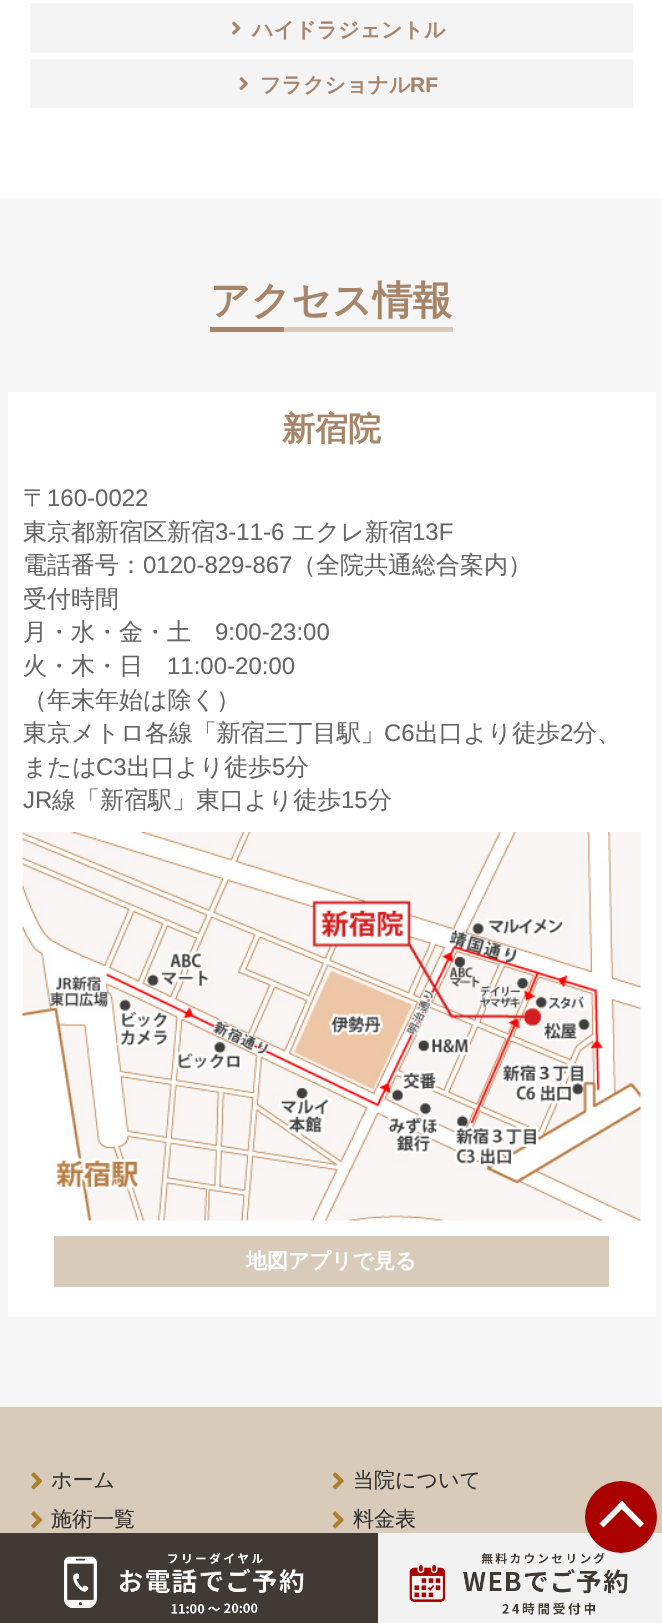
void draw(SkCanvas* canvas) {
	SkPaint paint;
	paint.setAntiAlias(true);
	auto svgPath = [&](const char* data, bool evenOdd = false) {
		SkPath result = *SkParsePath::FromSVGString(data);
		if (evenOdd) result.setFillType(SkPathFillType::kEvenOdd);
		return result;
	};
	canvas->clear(0xffffffff);
	paint.setColor(0xfff4f4f4);
	canvas->drawRect(SkRect::MakeXYWH(30, 3, 603, 50), paint);
	canvas->drawImageRect(SkImages::DeferredFromEncodedData(SkData::MakeFromFileName("img1.png")), SkRect::MakeXYWH(232, 21, 9, 14), SkSamplingOptions());
	SkFont f1(fontMgr->matchFamilyStyle("WenQuanYi Zen Hei", SkFontStyle::Bold()), 21);
	f1.setSubpixel(true);
	paint.setColor(0xffa78569);
	canvas->drawString("ハイドラジェントル", 252, 37, f1, paint);
	paint.setColor(0xfff4f4f4);
	canvas->drawRect(SkRect::MakeXYWH(30, 59, 603, 49), paint);
	canvas->drawImageRect(SkImages::DeferredFromEncodedData(SkData::MakeFromFileName("img2.png")), SkRect::MakeXYWH(239, 77, 9, 14), SkSamplingOptions());
	paint.setColor(0xffa78569);
	canvas->drawString("フラクショナル", 260, 92, f1, paint);
	SkFont f2(fontMgr->matchFamilyStyle("Liberation Sans", SkFontStyle::Bold()), 21);
	f2.setSubpixel(true);
	canvas->drawString("RF", 410, 92, f2, paint);
	paint.setColor(0xfff6f6f6);
	canvas->drawRect(SkRect::MakeXYWH(0, 198, 662, 1209), paint);
	paint.setColor(0xffd8cbba);
	canvas->drawRect(SkRect::MakeXYWH(284, 327, 169, 5), paint);
	SkFont f3(fontMgr->matchFamilyStyle("WenQuanYi Zen Hei", SkFontStyle::Bold()), 39.75);
	f3.setSubpixel(true);
	paint.setColor(0xffa78569);
	canvas->drawString("アクセス情報", 210, 314, f3, paint);
	canvas->drawRect(SkRect::MakeXYWH(210, 327, 74, 5), paint);
	paint.setColor(0xffffffff);
	canvas->drawRect(SkRect::MakeXYWH(8, 392, 648, 925), paint);
	SkFont f4(fontMgr->matchFamilyStyle("WenQuanYi Zen Hei", SkFontStyle::Bold()), 33);
	f4.setSubpixel(true);
	paint.setColor(0xffa78569);
	canvas->drawString("新宿院", 282, 440, f4, paint);
	SkFont f5(fontMgr->matchFamilyStyle("WenQuanYi Zen Hei", SkFontStyle(500, SkFontStyle::kNormal_Width, SkFontStyle::kUpright_Slant)), 24);
	f5.setSubpixel(true);
	paint.setColor(0xff666666);
	canvas->drawString("〒", 23, 506, f5, paint);
	SkFont f6(fontMgr->matchFamilyStyle("Liberation Sans", SkFontStyle::Normal()), 24);
	f6.setSubpixel(true);
	canvas->drawString("160-0022", 47, 506, f6, paint);
	canvas->drawString("東京都新宿区新宿", 23, 540, f5, paint);
	canvas->drawString("3-11-6", 215, 540, f6, paint);
	canvas->drawString("エクレ新宿", 291, 540, f5, paint);
	canvas->drawString("13F", 412, 540, f6, paint);
	canvas->drawString("電話番号：", 23, 573, f5, paint);
	canvas->drawString("0120-829-867", 143, 573, f6, paint);
	canvas->drawString("（全院共通総合案内）", 292, 573, f5, paint);
	canvas->drawString("受付時間", 23, 607, f5, paint);
	canvas->drawString("月・水・金・土", 23, 640, f5, paint);
	canvas->drawString("9:00-23:00", 215, 640, f6, paint);
	canvas->drawString("火・木・日", 23, 674, f5, paint);
	canvas->drawString("11:00-20:00", 167, 674, f6, paint);
	canvas->drawString("（年末年始は除く）", 23, 708, f5, paint);
	canvas->drawString("東京メトロ各線「新宿三丁目駅」", 23, 741, f5, paint);
	canvas->drawString("C6", 384, 741, f6, paint);
	canvas->drawString("出口より徒歩", 415, 741, f5, paint);
	canvas->drawString("2", 560, 741, f6, paint);
	canvas->drawString("分、", 573, 741, f5, paint);
	canvas->drawString("または", 23, 775, f5, paint);
	canvas->drawString("C3", 96, 775, f6, paint);
	canvas->drawString("出口より徒歩", 127, 775, f5, paint);
	canvas->drawString("5", 272, 775, f6, paint);
	canvas->drawString("分", 285, 775, f5, paint);
	canvas->drawString("JR", 23, 808, f6, paint);
	canvas->drawString("線「新宿駅」東口より徒歩", 52, 808, f5, paint);
	canvas->drawString("15", 341, 808, f6, paint);
	canvas->drawString("分", 368, 808, f5, paint);
	canvas->drawImageRect(SkImages::DeferredFromEncodedData(SkData::MakeFromFileName("img3.png")), SkRect::MakeXYWH(22, 832, 619, 389), SkSamplingOptions());
	paint.setColor(0xffd8cbba);
	canvas->drawRect(SkRect::MakeXYWH(54, 1236, 555, 51), paint);
	paint.setColor(0xffffffff);
	canvas->drawString("地図アプリで見る", 246, 1268, f1, paint);
	paint.setColor(0xffd8cbba);
	canvas->drawRect(SkRect::MakeXYWH(0, 1407, 662, 126), paint);
	canvas->drawImageRect(SkImages::DeferredFromEncodedData(SkData::MakeFromFileName("img4.png")), SkRect::MakeXYWH(31, 1472, 12, 18), SkSamplingOptions());
	SkFont f7(fontMgr->matchFamilyStyle("WenQuanYi Zen Hei", SkFontStyle(500, SkFontStyle::kNormal_Width, SkFontStyle::kUpright_Slant)), 21);
	f7.setSubpixel(true);
	paint.setColor(0xff333333);
	canvas->drawString("ホーム", 51, 1487, f7, paint);
	canvas->drawImageRect(SkImages::DeferredFromEncodedData(SkData::MakeFromFileName("img5.png")), SkRect::MakeXYWH(332, 1472, 12, 18), SkSamplingOptions());
	canvas->drawString("当院について", 353, 1487, f7, paint);
	canvas->drawImageRect(SkImages::DeferredFromEncodedData(SkData::MakeFromFileName("img4.png")), SkRect::MakeXYWH(31, 1511, 12, 18), SkSamplingOptions());
	canvas->drawString("施術一覧", 51, 1526, f7, paint);
	canvas->drawImageRect(SkImages::DeferredFromEncodedData(SkData::MakeFromFileName("img5.png")), SkRect::MakeXYWH(332, 1511, 12, 18), SkSamplingOptions());
	canvas->drawString("料金表", 353, 1526, f7, paint);
	paint.setColor(0xfff2f2f2);
	canvas->drawRect(SkRect::MakeXYWH(378, 1533, 284, 90), paint);
	paint.setColor(0xffaa0000);
	canvas->drawCircle(621, 1517, 36, paint);
	paint.setColor(0xffffffff);
	canvas->drawPath(svgPath("M622 1501L644 1523.5L640 1527.5L617.5 1505Z"), paint);
	canvas->drawPath(svgPath("M622 1501L626 1505L603.5 1527.5L599.5 1523.5Z"), paint);
	paint.setColor(0xff413a34);
	canvas->drawRect(SkRect::MakeXYWH(0, 1533, 378, 90), paint);
	canvas->drawImageRect(SkImages::DeferredFromEncodedData(SkData::MakeFromFileName("img6.png")), SkRect::MakeXYWH(64, 1553, 240, 61), SkSamplingOptions());
	canvas->drawImageRect(SkImages::DeferredFromEncodedData(SkData::MakeFromFileName("img7.png")), SkRect::MakeXYWH(409, 1553, 219, 62), SkSamplingOptions());
}
